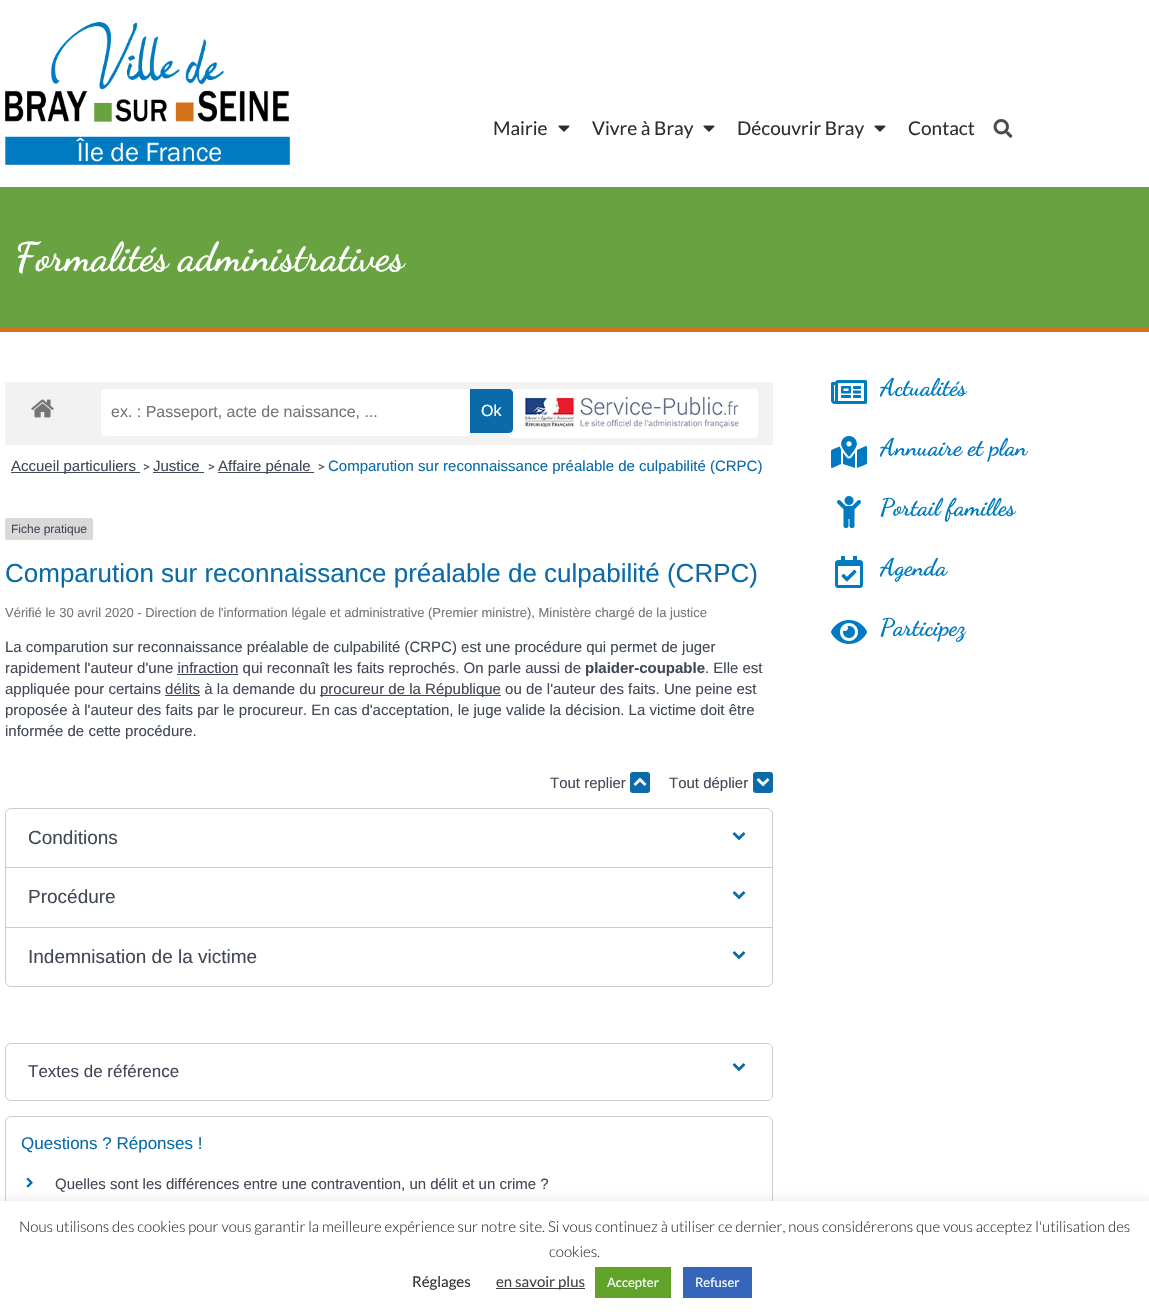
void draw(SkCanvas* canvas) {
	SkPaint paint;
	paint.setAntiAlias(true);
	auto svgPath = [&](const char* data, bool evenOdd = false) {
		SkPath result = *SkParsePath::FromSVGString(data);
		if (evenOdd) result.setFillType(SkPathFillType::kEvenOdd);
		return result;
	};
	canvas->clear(0xffffffff);
	canvas->drawImageRect(SkImages::DeferredFromEncodedData(SkData::MakeFromFileName("img1.png")), SkRect::MakeXYWH(5, 22, 285, 143), SkSamplingOptions());
	SkFont f1(fontMgr->matchFamilyStyle("Lato", SkFontStyle::Normal()), 19);
	f1.setSubpixel(true);
	paint.setColor(0xff2a302f);
	canvas->drawString("Mairie", 493, 135, f1, paint);
	canvas->drawImageRect(SkImages::DeferredFromEncodedData(SkData::MakeFromFileName("img2.png")), SkRect::MakeXYWH(558, 125, 12, 7), SkSamplingOptions());
	canvas->drawString("Vivre à Bray", 592, 135, f1, paint);
	canvas->drawImageRect(SkImages::DeferredFromEncodedData(SkData::MakeFromFileName("img2.png")), SkRect::MakeXYWH(703, 125, 12, 7), SkSamplingOptions());
	canvas->drawString("Découvrir Bray", 737, 135, f1, paint);
	canvas->drawImageRect(SkImages::DeferredFromEncodedData(SkData::MakeFromFileName("img2.png")), SkRect::MakeXYWH(874, 125, 12, 7), SkSamplingOptions());
	canvas->drawString("Contact", 908, 135, f1, paint);
	canvas->drawImageRect(SkImages::DeferredFromEncodedData(SkData::MakeFromFileName("img3.png")), SkRect::MakeXYWH(993, 119, 20, 19), SkSamplingOptions());
	paint.setColor(0xff69a341);
	canvas->drawRect(SkRect::MakeXYWH(0, 187, 1149, 140), paint);
	paint.setColor(0xffd3741c);
	canvas->drawRect(SkRect::MakeXYWH(0, 327, 1149, 5), paint);
	SkFont f2(fontMgr->matchFamilyStyle("Dancing Script", SkFontStyle::Bold()), 40);
	f2.setSubpixel(true);
	paint.setColor(0xffffffff);
	canvas->drawString("Formalités administratives", 15, 270, f2, paint);
	paint.setColor(0xfff2f2f2);
	canvas->drawRect(SkRect::MakeXYWH(5, 382, 768, 63), paint);
	canvas->drawImageRect(SkImages::DeferredFromEncodedData(SkData::MakeFromFileName("img4.png")), SkRect::MakeXYWH(31, 399, 23, 19), SkSamplingOptions());
	paint.setColor(0xffffffff);
	canvas->drawPath(svgPath("M105 389H470V436H105C103 436 101 434 101 432V393C101 391 103 389 105 389Z"), paint);
	SkFont f3(fontMgr->matchFamilyStyle("Liberation Sans", SkFontStyle::Normal()), 16);
	f3.setSubpixel(true);
	paint.setColor(0xff757575);
	canvas->drawString("ex. : Passeport, acte de naissance, ...", 111, 417, f3, paint);
	paint.setColor(0xffffffff);
	canvas->drawRoundRect(SkRect::MakeXYWH(508, 389, 250, 49), 4, 4, paint);
	paint.setColor(0xff0b6ba8);
	canvas->drawPath(svgPath("M470 389H509C511 389 513 391 513 393V429C513 431 511 433 509 433H470Z"), paint);
	paint.setColor(0xffffffff);
	canvas->drawString("Ok", 481, 416, f3, paint);
	canvas->drawImageRect(SkImages::DeferredFromEncodedData(SkData::MakeFromFileName("img5.png")), SkRect::MakeXYWH(525, 394, 215, 36), SkSamplingOptions());
	paint.setColor(0xff414856);
	canvas->drawRect(SkRect::MakeXYWH(11, 472, 129, 1), paint);
	SkFont f4(fontMgr->matchFamilyStyle("Liberation Sans", SkFontStyle::Normal()), 15);
	f4.setSubpixel(true);
	canvas->drawString("Accueil particuliers", 11, 471, f4, paint);
	SkFont f5(fontMgr->matchFamilyStyle("Roboto", SkFontStyle::Normal()), 13);
	f5.setSubpixel(true);
	canvas->drawString(">", 143, 471, f5, paint);
	canvas->drawString("Justice", 153, 471, f4, paint);
	canvas->drawRect(SkRect::MakeXYWH(153, 472, 51, 1), paint);
	canvas->drawString(">", 208, 471, f5, paint);
	canvas->drawRect(SkRect::MakeXYWH(218, 472, 96, 1), paint);
	canvas->drawString("Affaire pénale", 218, 471, f4, paint);
	canvas->drawString(">", 318, 471, f5, paint);
	paint.setColor(0xff0b6ba8);
	canvas->drawString("Comparution sur reconnaissance préalable de culpabilité (CRPC)", 328, 471, f4, paint);
	paint.setColor(0xffd9d9d9);
	canvas->drawRoundRect(SkRect::MakeXYWH(5, 518, 88, 22), 2, 2, paint);
	SkFont f6(fontMgr->matchFamilyStyle("Liberation Sans", SkFontStyle::Normal()), 12);
	f6.setSubpixel(true);
	paint.setColor(0xff414856);
	canvas->drawString("Fiche pratique", 11, 533, f6, paint);
	SkFont f7(fontMgr->matchFamilyStyle("Liberation Sans", SkFontStyle::Normal()), 26);
	f7.setSubpixel(true);
	paint.setColor(0xff0b6ba8);
	canvas->drawString("Comparution sur reconnaissance préalable de culpabilité (CRPC)", 5, 582, f7, paint);
	SkFont f8(fontMgr->matchFamilyStyle("Liberation Sans", SkFontStyle::Normal()), 13);
	f8.setSubpixel(true);
	paint.setColor(0xff757575);
	canvas->drawString("Vérifié le 30 avril 2020 - Direction de l'information légale et administrative (Premier ministre), Ministère chargé de la justice", 5, 617, f8, paint);
	paint.setColor(0xff414856);
	canvas->drawString("La comparution sur reconnaissance préalable de culpabilité (CRPC) est une procédure qui permet de juger", 5, 652, f4, paint);
	canvas->drawString("rapidement l'auteur d'une infraction qui reconnaît les faits reprochés. On parle aussi de", 5, 673, f4, paint);
	SkFont f9(fontMgr->matchFamilyStyle("Liberation Sans", SkFontStyle::Bold()), 15);
	f9.setSubpixel(true);
	canvas->drawString("plaider-coupable", 585, 673, f9, paint);
	canvas->drawString(". Elle est", 705, 673, f4, paint);
	canvas->drawRect(SkRect::MakeXYWH(177, 674, 61, 1), paint);
	canvas->drawString("appliquée pour certains délits à la demande du", 5, 694, f4, paint);
	canvas->drawRect(SkRect::MakeXYWH(320, 695, 181, 1), paint);
	canvas->drawString("procureur de la République ou de l'auteur des faits. Une peine est", 320, 694, f4, paint);
	canvas->drawRect(SkRect::MakeXYWH(165, 695, 35, 1), paint);
	canvas->drawString("proposée à l'auteur des faits par le procureur. En cas d'acceptation, le juge valide la décision. La victime doit être", 5, 715, f4, paint);
	canvas->drawString("informée de cette procédure.", 5, 736, f4, paint);
	canvas->drawString("Tout replier", 550, 788, f4, paint);
	paint.setColor(0xff0b6ba8);
	canvas->drawRoundRect(SkRect::MakeXYWH(630, 772, 20, 21), 3, 3, paint);
	canvas->drawImageRect(SkImages::DeferredFromEncodedData(SkData::MakeFromFileName("img6.png")), SkRect::MakeXYWH(633, 777, 14, 9), SkSamplingOptions());
	paint.setColor(0xff414856);
	canvas->drawString("Tout déplier", 669, 788, f4, paint);
	paint.setColor(0xff0b6ba8);
	canvas->drawRoundRect(SkRect::MakeXYWH(753, 772, 20, 21), 3, 3, paint);
	canvas->drawImageRect(SkImages::DeferredFromEncodedData(SkData::MakeFromFileName("img7.png")), SkRect::MakeXYWH(756, 778, 14, 9), SkSamplingOptions());
	paint.setStroke(true);
	paint.setStrokeWidth(1);
	paint.setColor(0xffcccccc);
	canvas->drawRoundRect(SkRect::MakeXYWH(5.5, 808.5, 767, 178), 5.5, 5.5, paint);
	SkFont f10(fontMgr->matchFamilyStyle("Liberation Sans", SkFontStyle::Normal()), 19);
	f10.setSubpixel(true);
	paint.setStroke(false);
	paint.setColor(0xff414856);
	canvas->drawString("Conditions", 28, 844, f10, paint);
	canvas->drawImageRect(SkImages::DeferredFromEncodedData(SkData::MakeFromFileName("img8.png")), SkRect::MakeXYWH(732, 832, 14, 9), SkSamplingOptions());
	paint.setColor(0xffcccccc);
	canvas->drawRect(SkRect::MakeXYWH(6, 867, 766, 1), paint);
	paint.setColor(0xff414856);
	canvas->drawString("Procédure", 28, 903, f10, paint);
	canvas->drawImageRect(SkImages::DeferredFromEncodedData(SkData::MakeFromFileName("img8.png")), SkRect::MakeXYWH(732, 891, 14, 9), SkSamplingOptions());
	paint.setColor(0xffcccccc);
	canvas->drawRect(SkRect::MakeXYWH(6, 927, 766, 1), paint);
	paint.setColor(0xff414856);
	canvas->drawString("Indemnisation de la victime", 28, 963, f10, paint);
	canvas->drawImageRect(SkImages::DeferredFromEncodedData(SkData::MakeFromFileName("img8.png")), SkRect::MakeXYWH(732, 951, 14, 9), SkSamplingOptions());
	paint.setStroke(true);
	paint.setColor(0xffcccccc);
	canvas->drawRoundRect(SkRect::MakeXYWH(5.5, 1043.5, 767, 57), 5.5, 5.5, paint);
	SkFont f11(fontMgr->matchFamilyStyle("Liberation Sans", SkFontStyle::Normal()), 17);
	f11.setSubpixel(true);
	paint.setStroke(false);
	paint.setColor(0xff414856);
	canvas->drawString("Textes de référence", 28, 1077, f11, paint);
	canvas->drawImageRect(SkImages::DeferredFromEncodedData(SkData::MakeFromFileName("img8.png")), SkRect::MakeXYWH(732, 1063, 14, 9), SkSamplingOptions());
	paint.setStroke(true);
	paint.setColor(0xffcccccc);
	canvas->drawRoundRect(SkRect::MakeXYWH(5.5, 1116.5, 767, 153), 5.5, 5.5, paint);
	paint.setStroke(false);
	paint.setColor(0xff0b6ba8);
	canvas->drawString("Questions ? Réponses !", 21, 1149, f11, paint);
	canvas->drawImageRect(SkImages::DeferredFromEncodedData(SkData::MakeFromFileName("img9.png")), SkRect::MakeXYWH(26, 1177, 7, 11), SkSamplingOptions());
	paint.setColor(0xff414856);
	canvas->drawString("Quelles sont les différences entre une contravention, un délit et un crime ?", 55, 1189, f4, paint);
	canvas->drawImageRect(SkImages::DeferredFromEncodedData(SkData::MakeFromFileName("img10.png")), SkRect::MakeXYWH(831, 380, 36, 24), SkSamplingOptions());
	SkFont f12(fontMgr->matchFamilyStyle("Dancing Script", SkFontStyle::Bold()), 24);
	f12.setSubpixel(true);
	paint.setColor(0xff007bc1);
	canvas->drawString("Actualités", 880, 395, f12, paint);
	canvas->drawImageRect(SkImages::DeferredFromEncodedData(SkData::MakeFromFileName("img11.png")), SkRect::MakeXYWH(831, 436, 36, 32), SkSamplingOptions());
	canvas->drawString("Annuaire et plan", 880, 455, f12, paint);
	canvas->drawImageRect(SkImages::DeferredFromEncodedData(SkData::MakeFromFileName("img12.png")), SkRect::MakeXYWH(837, 496, 24, 32), SkSamplingOptions());
	canvas->drawString("Portail familles", 880, 515, f12, paint);
	canvas->drawImageRect(SkImages::DeferredFromEncodedData(SkData::MakeFromFileName("img13.png")), SkRect::MakeXYWH(835, 556, 28, 32), SkSamplingOptions());
	canvas->drawString("Agenda", 880, 575, f12, paint);
	canvas->drawImageRect(SkImages::DeferredFromEncodedData(SkData::MakeFromFileName("img14.png")), SkRect::MakeXYWH(831, 620, 36, 24), SkSamplingOptions());
	canvas->drawString("Participez", 880, 635, f12, paint);
	paint.setColor(0x4dacabab);
	paint.setMaskFilter(SkMaskFilter::MakeBlur(kNormal_SkBlurStyle, 5));
	canvas->drawRect(SkRect::MakeXYWH(0, 1200, 1149, 114), paint);
	paint.setMaskFilter(nullptr);
	paint.setColor(0xffffffff);
	canvas->drawRect(SkRect::MakeXYWH(0, 1201, 1149, 114), paint);
	SkFont f13(fontMgr->matchFamilyStyle("Lato", SkFontStyle(300, SkFontStyle::kNormal_Width, SkFontStyle::kUpright_Slant)), 15);
	f13.setSubpixel(true);
	paint.setColor(0xff333333);
	canvas->drawString("Nous utilisons des cookies pour vous garantir la meilleure expérience sur notre site. Si vous continuez à utiliser ce dernier, nous considérerons que vous acceptez l'utilisation des", 19, 1232, f13, paint);
	canvas->drawString("cookies.", 549, 1257, f13, paint);
	SkFont f14(fontMgr->matchFamilyStyle("Lato", SkFontStyle::Normal()), 15);
	f14.setSubpixel(true);
	canvas->drawString("Réglages", 412, 1287, f14, paint);
	paint.setColor(0xff444444);
	canvas->drawRect(SkRect::MakeXYWH(496, 1288, 89, 1), paint);
	canvas->drawString("en savoir plus", 496, 1287, f14, paint);
	paint.setColor(0xff61a229);
	canvas->drawRect(SkRect::MakeXYWH(595, 1267, 76, 31), paint);
	SkFont f15(fontMgr->matchFamilyStyle("Lato", SkFontStyle::Normal()), 13);
	f15.setSubpixel(true);
	paint.setColor(0xffffffff);
	canvas->drawString("Accepter", 607, 1287, f15, paint);
	paint.setColor(0xff3566bb);
	canvas->drawRect(SkRect::MakeXYWH(683, 1267, 69, 31), paint);
	paint.setColor(0xffffffff);
	canvas->drawString("Refuser", 695, 1287, f15, paint);
}
